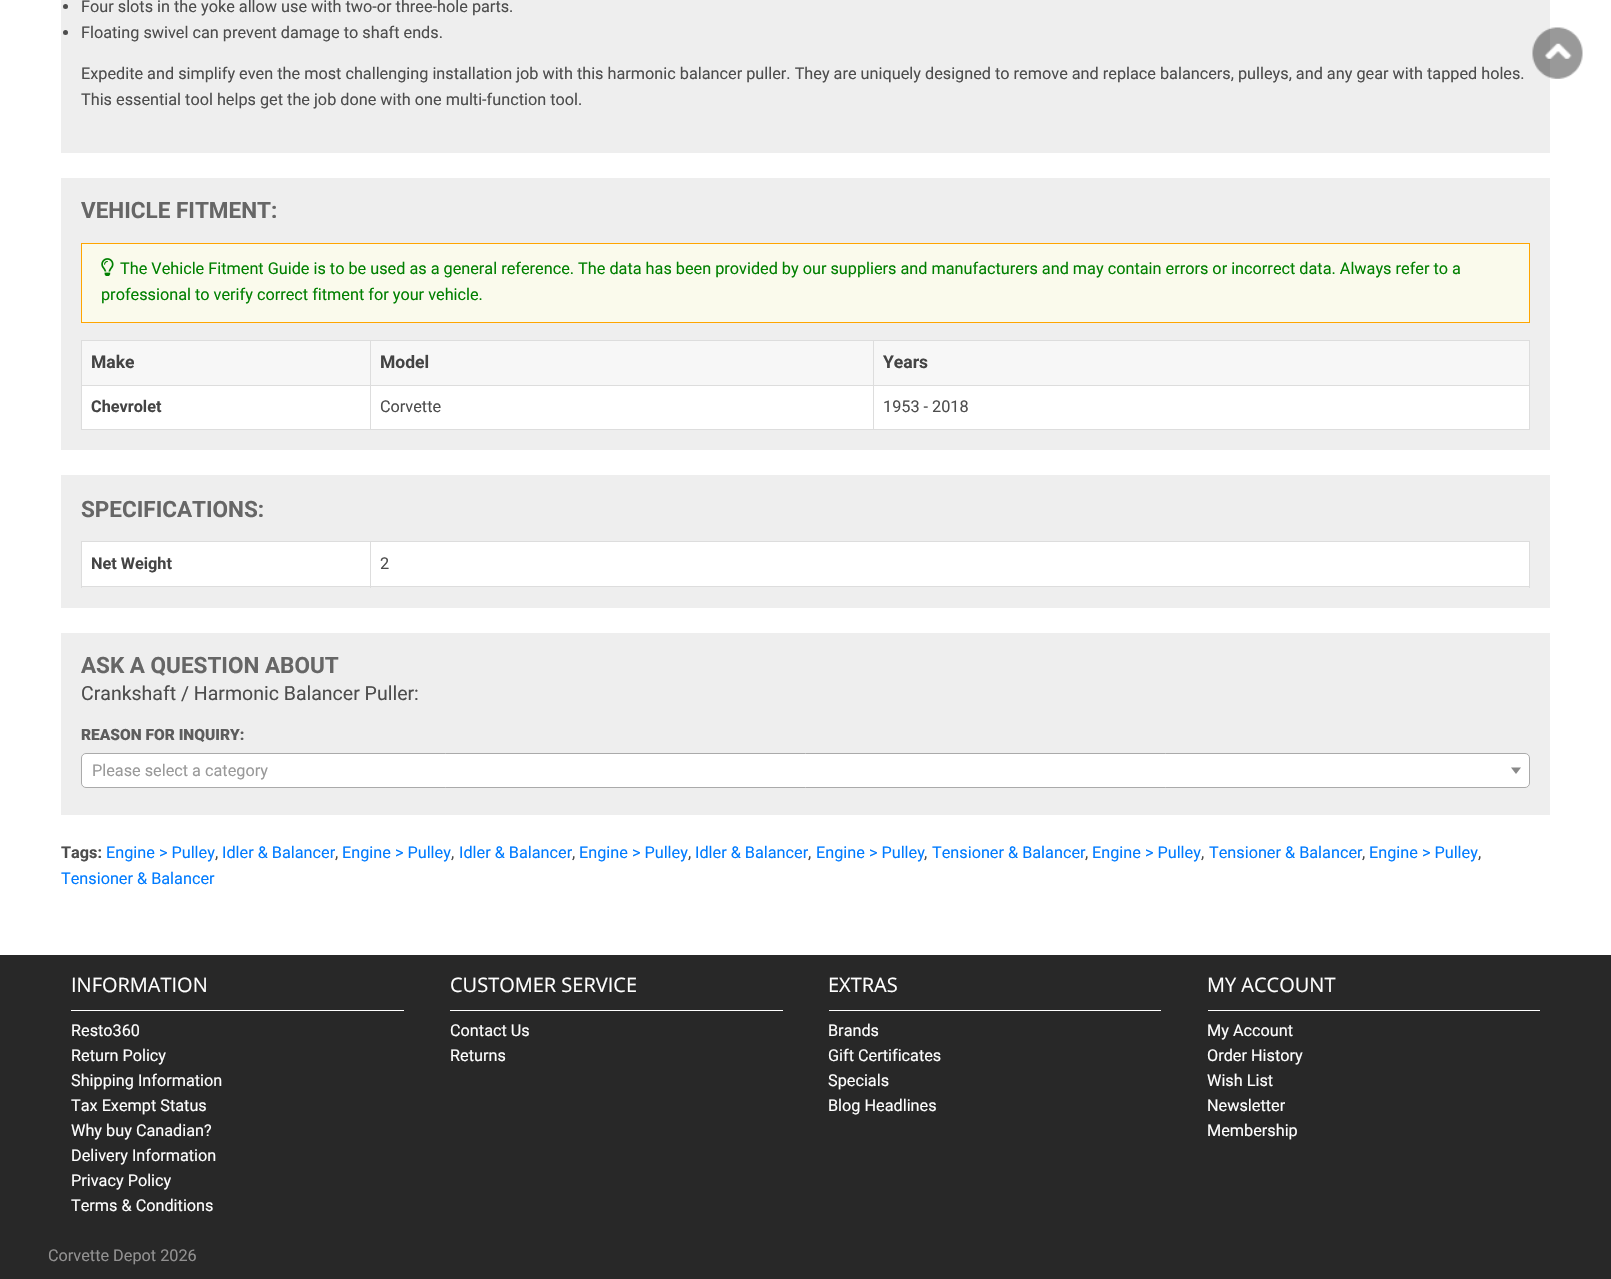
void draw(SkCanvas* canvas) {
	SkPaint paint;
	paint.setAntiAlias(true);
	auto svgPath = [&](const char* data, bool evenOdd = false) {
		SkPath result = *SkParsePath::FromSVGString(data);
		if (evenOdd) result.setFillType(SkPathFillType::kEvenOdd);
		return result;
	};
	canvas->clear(0xffffffff);
	paint.setColor(0xffeeeeee);
	canvas->drawRect(SkRect::MakeXYWH(61, 0, 1489, 153), paint);
	paint.setColor(0xff4d4d4d);
	canvas->drawCircle(65.5, 6.5, 2.5, paint);
	SkFont f1(fontMgr->matchFamilyStyle("Roboto", SkFontStyle::Normal()), 16.25);
	f1.setSubpixel(true);
	canvas->drawString("Four slots in the yoke allow use with two-or three-hole parts.", 81, 12, f1, paint);
	canvas->drawCircle(65.5, 32.5, 2.5, paint);
	canvas->drawString("Floating swivel can prevent damage to shaft ends.", 81, 38, f1, paint);
	canvas->drawString("Expedite and simplify even the most challenging installation job with this harmonic balancer puller. They are uniquely designed to remove and replace balancers, pulleys, and any gear with tapped holes.", 81, 79, f1, paint);
	canvas->drawString("This essential tool helps get the job done with one multi-function tool.", 81, 105, f1, paint);
	paint.setColor(0xffeeeeee);
	canvas->drawRect(SkRect::MakeXYWH(61, 178, 1489, 272), paint);
	SkFont f2(fontMgr->matchFamilyStyle("Roboto", SkFontStyle::Bold()), 22.5);
	f2.setSubpixel(true);
	paint.setColor(0xff666666);
	canvas->drawString("VEHICLE FITMENT:", 81, 218, f2, paint);
	paint.setColor(0xfffafaec);
	canvas->drawRect(SkRect::MakeXYWH(81.5, 243.5, 1448, 79), paint);
	paint.setStroke(true);
	paint.setStrokeWidth(1);
	paint.setColor(0xffffa500);
	canvas->drawRect(SkRect::MakeXYWH(81.5, 243.5, 1448, 79), paint);
	canvas->drawImageRect(SkImages::DeferredFromEncodedData(SkData::MakeFromFileName("img1.png")), SkRect::MakeXYWH(101, 258, 13, 18), SkSamplingOptions());
	paint.setStroke(false);
	paint.setColor(0xff008000);
	canvas->drawString("The Vehicle Fitment Guide is to be used as a general reference. The data has been provided by our suppliers and manufacturers and may contain errors or incorrect data. Always refer to a", 120, 274, f1, paint);
	canvas->drawString("professional to verify correct fitment for your vehicle.", 101, 300, f1, paint);
	paint.setColor(0xffdddddd);
	canvas->drawRect(SkRect::MakeXYWH(81, 340, 1449, 1), paint);
	canvas->drawRect(SkRect::MakeXYWH(81, 340, 1, 90), paint);
	paint.setColor(0xfff7f7f7);
	canvas->drawRect(SkRect::MakeXYWH(82, 341, 288, 44), paint);
	paint.setColor(0xffdddddd);
	canvas->drawRect(SkRect::MakeXYWH(1529, 340, 1, 90), paint);
	canvas->drawRect(SkRect::MakeXYWH(873, 429, 657, 1), paint);
	canvas->drawRect(SkRect::MakeXYWH(873, 385, 1, 45), paint);
	canvas->drawRect(SkRect::MakeXYWH(873, 385, 657, 1), paint);
	canvas->drawRect(SkRect::MakeXYWH(873, 340, 1, 46), paint);
	canvas->drawRect(SkRect::MakeXYWH(370, 429, 504, 1), paint);
	canvas->drawRect(SkRect::MakeXYWH(370, 385, 1, 45), paint);
	canvas->drawRect(SkRect::MakeXYWH(370, 385, 504, 1), paint);
	canvas->drawRect(SkRect::MakeXYWH(370, 340, 1, 46), paint);
	canvas->drawRect(SkRect::MakeXYWH(81, 385, 290, 1), paint);
	SkFont f3(fontMgr->matchFamilyStyle("Roboto", SkFontStyle::Bold()), 17.5);
	f3.setSubpixel(true);
	paint.setColor(0xff444444);
	canvas->drawString("Make", 91, 368, f3, paint);
	paint.setColor(0xfff7f7f7);
	canvas->drawRect(SkRect::MakeXYWH(371, 341, 502, 44), paint);
	paint.setColor(0xff444444);
	canvas->drawString("Model", 380, 368, f3, paint);
	paint.setColor(0xfff7f7f7);
	canvas->drawRect(SkRect::MakeXYWH(874, 341, 655, 44), paint);
	paint.setColor(0xff444444);
	canvas->drawString("Years", 883, 368, f3, paint);
	paint.setColor(0xffffffff);
	canvas->drawRect(SkRect::MakeXYWH(82, 386, 288, 43), paint);
	paint.setColor(0xffdddddd);
	canvas->drawRect(SkRect::MakeXYWH(81, 429, 290, 1), paint);
	SkFont f4(fontMgr->matchFamilyStyle("Roboto", SkFontStyle::Bold()), 16.25);
	f4.setSubpixel(true);
	paint.setColor(0xff444444);
	canvas->drawString("Chevrolet", 91, 412, f4, paint);
	paint.setColor(0xffffffff);
	canvas->drawRect(SkRect::MakeXYWH(371, 386, 502, 43), paint);
	paint.setColor(0xff4d4d4d);
	canvas->drawString("Corvette", 380, 412, f1, paint);
	paint.setColor(0xffffffff);
	canvas->drawRect(SkRect::MakeXYWH(874, 386, 655, 43), paint);
	paint.setColor(0xff4d4d4d);
	canvas->drawString("1953 - 2018", 883, 412, f1, paint);
	paint.setColor(0xffeeeeee);
	canvas->drawRect(SkRect::MakeXYWH(61, 475, 1489, 133), paint);
	paint.setColor(0xff666666);
	canvas->drawString("SPECIFICATIONS:", 81, 517, f2, paint);
	paint.setColor(0xffdddddd);
	canvas->drawRect(SkRect::MakeXYWH(81, 541, 1449, 1), paint);
	canvas->drawRect(SkRect::MakeXYWH(81, 541, 1, 47), paint);
	paint.setColor(0xffffffff);
	canvas->drawRect(SkRect::MakeXYWH(82, 542, 288, 44), paint);
	paint.setColor(0xffdddddd);
	canvas->drawRect(SkRect::MakeXYWH(1529, 541, 1, 47), paint);
	canvas->drawRect(SkRect::MakeXYWH(370, 586, 1160, 1), paint);
	canvas->drawRect(SkRect::MakeXYWH(370, 541, 1, 47), paint);
	canvas->drawRect(SkRect::MakeXYWH(81, 586, 290, 1), paint);
	paint.setColor(0xff444444);
	canvas->drawString("Net Weight", 91, 569, f4, paint);
	paint.setColor(0xffffffff);
	canvas->drawRect(SkRect::MakeXYWH(371, 542, 1158, 44), paint);
	paint.setColor(0xff4d4d4d);
	canvas->drawString("2", 380, 569, f1, paint);
	paint.setColor(0xffeeeeee);
	canvas->drawRect(SkRect::MakeXYWH(61, 633, 1489, 182), paint);
	paint.setColor(0xff666666);
	canvas->drawString("ASK A QUESTION ABOUT", 81, 673, f2, paint);
	SkFont f5(fontMgr->matchFamilyStyle("Roboto", SkFontStyle::Normal()), 19.5);
	f5.setSubpixel(true);
	paint.setColor(0xff4d4d4d);
	canvas->drawString("Crankshaft / Harmonic Balancer Puller:", 81, 700, f5, paint);
	SkFont f6(fontMgr->matchFamilyStyle("Roboto", SkFontStyle(900, SkFontStyle::kNormal_Width, SkFontStyle::kUpright_Slant)), 15.5);
	f6.setSubpixel(true);
	paint.setColor(0xff5d5d5d);
	canvas->drawString("REASON FOR INQUIRY:", 81, 740, f6, paint);
	paint.setColor(0xffffffff);
	canvas->drawRoundRect(SkRect::MakeXYWH(81.5, 753.5, 1448, 34), 4.5, 4.5, paint);
	paint.setStroke(true);
	paint.setColor(0xffaaaaaa);
	canvas->drawRoundRect(SkRect::MakeXYWH(81.5, 753.5, 1448, 34), 4.5, 4.5, paint);
	paint.setStroke(false);
	paint.setColor(0xff999999);
	canvas->drawString("Please select a category", 92, 776, f1, paint);
	paint.setColor(0xff888888);
	canvas->drawPath(svgPath("M1511 767.5H1521L1516 774Z"), paint);
	paint.setColor(0xff4d4d4d);
	canvas->drawString("Tags:", 61, 858, f4, paint);
	paint.setColor(0xff007bff);
	canvas->drawString("Engine > Pulley", 106, 858, f1, paint);
	paint.setColor(0xff4d4d4d);
	canvas->drawString(",", 215, 858, f1, paint);
	paint.setColor(0xff007bff);
	canvas->drawString("Idler & Balancer", 222, 858, f1, paint);
	paint.setColor(0xff4d4d4d);
	canvas->drawString(",", 335, 858, f1, paint);
	paint.setColor(0xff007bff);
	canvas->drawString("Engine > Pulley", 342, 858, f1, paint);
	paint.setColor(0xff4d4d4d);
	canvas->drawString(",", 451, 858, f1, paint);
	paint.setColor(0xff007bff);
	canvas->drawString("Idler & Balancer", 459, 858, f1, paint);
	paint.setColor(0xff4d4d4d);
	canvas->drawString(",", 572, 858, f1, paint);
	paint.setColor(0xff007bff);
	canvas->drawString("Engine > Pulley", 579, 858, f1, paint);
	paint.setColor(0xff4d4d4d);
	canvas->drawString(",", 688, 858, f1, paint);
	paint.setColor(0xff007bff);
	canvas->drawString("Idler & Balancer", 695, 858, f1, paint);
	paint.setColor(0xff4d4d4d);
	canvas->drawString(",", 808, 858, f1, paint);
	paint.setColor(0xff007bff);
	canvas->drawString("Engine > Pulley", 816, 858, f1, paint);
	paint.setColor(0xff4d4d4d);
	canvas->drawString(",", 924, 858, f1, paint);
	paint.setColor(0xff007bff);
	canvas->drawString("Tensioner & Balancer", 932, 858, f1, paint);
	paint.setColor(0xff4d4d4d);
	canvas->drawString(",", 1085, 858, f1, paint);
	paint.setColor(0xff007bff);
	canvas->drawString("Engine > Pulley", 1092, 858, f1, paint);
	paint.setColor(0xff4d4d4d);
	canvas->drawString(",", 1201, 858, f1, paint);
	paint.setColor(0xff007bff);
	canvas->drawString("Tensioner & Balancer", 1209, 858, f1, paint);
	paint.setColor(0xff4d4d4d);
	canvas->drawString(",", 1362, 858, f1, paint);
	paint.setColor(0xff007bff);
	canvas->drawString("Engine > Pulley", 1369, 858, f1, paint);
	paint.setColor(0xff4d4d4d);
	canvas->drawString(",", 1478, 858, f1, paint);
	paint.setColor(0xff007bff);
	canvas->drawString("Tensioner & Balancer", 61, 884, f1, paint);
	paint.setColor(0xff282828);
	canvas->drawRect(SkRect::MakeXYWH(0, 955, 1611, 324), paint);
	paint.setColor(0xffffffff);
	canvas->drawRect(SkRect::MakeXYWH(71, 1010, 333, 1), paint);
	SkFont f7(fontMgr->matchFamilyStyle("Open Sans", SkFontStyle::Normal()), 20);
	f7.setSubpixel(true);
	canvas->drawString("INFORMATION", 71, 992, f7, paint);
	canvas->drawString("Resto360", 71, 1036, f1, paint);
	canvas->drawString("Return Policy", 71, 1061, f1, paint);
	canvas->drawString("Shipping Information", 71, 1086, f1, paint);
	canvas->drawString("Tax Exempt Status", 71, 1111, f1, paint);
	canvas->drawString("Why buy Canadian?", 71, 1136, f1, paint);
	canvas->drawString("Delivery Information", 71, 1161, f1, paint);
	canvas->drawString("Privacy Policy", 71, 1186, f1, paint);
	canvas->drawString("Terms & Conditions", 71, 1211, f1, paint);
	canvas->drawRect(SkRect::MakeXYWH(450, 1010, 333, 1), paint);
	canvas->drawString("CUSTOMER SERVICE", 450, 992, f7, paint);
	canvas->drawString("Contact Us", 450, 1036, f1, paint);
	canvas->drawString("Returns", 450, 1061, f1, paint);
	canvas->drawRect(SkRect::MakeXYWH(829, 1010, 332, 1), paint);
	canvas->drawString("EXTRAS", 828, 992, f7, paint);
	canvas->drawString("Brands", 828, 1036, f1, paint);
	canvas->drawString("Gift Certificates", 828, 1061, f1, paint);
	canvas->drawString("Specials", 828, 1086, f1, paint);
	canvas->drawString("Blog Headlines", 828, 1111, f1, paint);
	canvas->drawRect(SkRect::MakeXYWH(1208, 1010, 332, 1), paint);
	canvas->drawString("MY ACCOUNT", 1207, 992, f7, paint);
	canvas->drawString("My Account", 1207, 1036, f1, paint);
	canvas->drawString("Order History", 1207, 1061, f1, paint);
	canvas->drawString("Wish List", 1207, 1086, f1, paint);
	canvas->drawString("Newsletter", 1207, 1111, f1, paint);
	canvas->drawString("Membership", 1207, 1136, f1, paint);
	paint.setColor(0xff929191);
	canvas->drawString("Corvette Depot 2026", 48, 1261, f1, paint);
	canvas->drawImageRect(SkImages::DeferredFromEncodedData(SkData::MakeFromFileName("img2.png")), SkRect::MakeXYWH(1532, 27, 51, 52), SkSamplingOptions());
}
